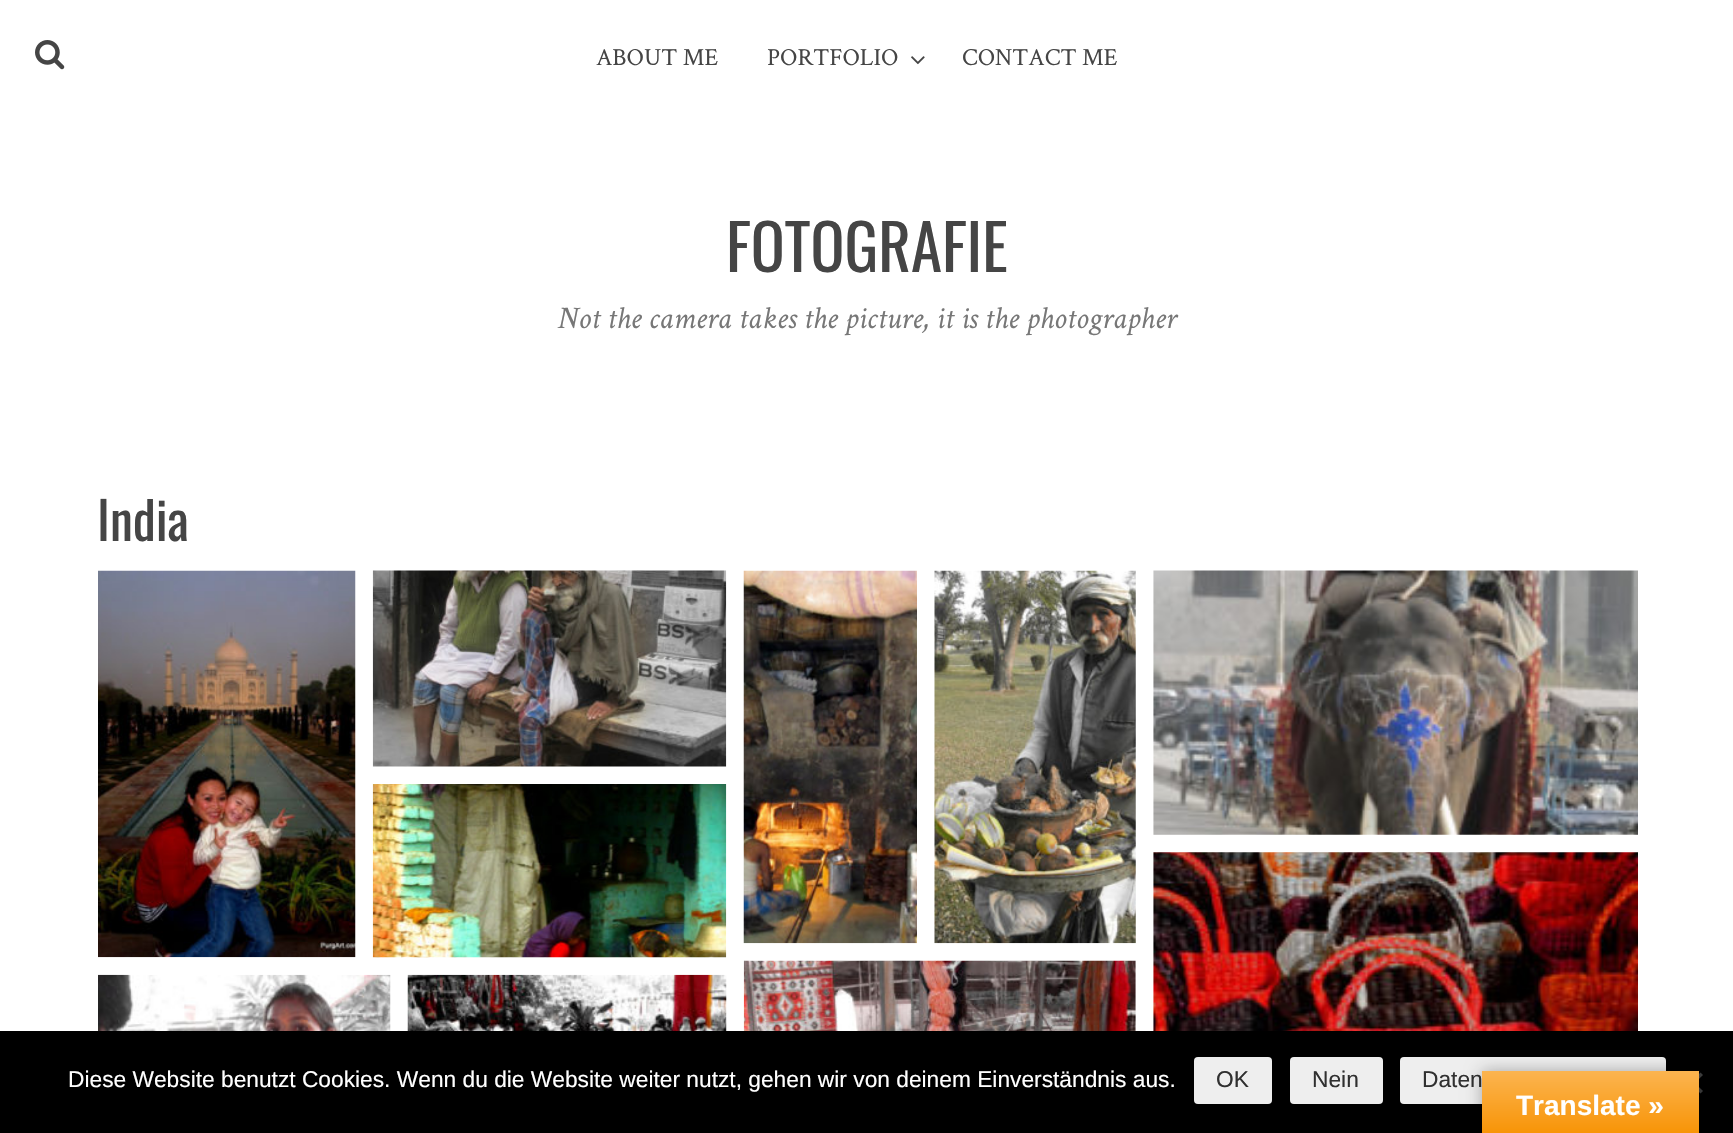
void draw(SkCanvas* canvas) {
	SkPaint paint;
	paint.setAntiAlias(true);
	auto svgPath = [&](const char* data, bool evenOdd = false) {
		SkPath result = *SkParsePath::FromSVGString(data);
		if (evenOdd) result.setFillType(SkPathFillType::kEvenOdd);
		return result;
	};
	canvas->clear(0xffffffff);
	canvas->drawImageRect(SkImages::DeferredFromEncodedData(SkData::MakeFromFileName("img1.png")), SkRect::MakeXYWH(35, 40, 30, 30), SkSamplingOptions());
	SkFont f1(fontMgr->matchFamilyStyle("Crimson Text", SkFontStyle::Normal()), 24.5);
	f1.setSubpixel(true);
	paint.setColor(0xff454545);
	canvas->drawString("ABOUT ME", 596, 65, f1, paint);
	canvas->drawString("PORTFOLIO", 767, 65, f1, paint);
	canvas->drawImageRect(SkImages::DeferredFromEncodedData(SkData::MakeFromFileName("img2.png")), SkRect::MakeXYWH(911, 56, 14, 9), SkSamplingOptions());
	canvas->drawString("CONTACT ME", 962, 65, f1, paint);
	SkFont f2(fontMgr->matchFamilyStyle("Oswald", SkFontStyle::Normal()), 63);
	f2.setSubpixel(true);
	canvas->drawString("FOTOGRAFIE", 726, 272, f2, paint);
	SkFont f3(fontMgr->matchFamilyStyle("Crimson Text", SkFontStyle::Italic()), 31.5);
	f3.setSubpixel(true);
	paint.setColor(0xff777777);
	canvas->drawString("Not the camera takes the picture, it is the photographer", 557, 328, f3, paint);
	SkFont f4(fontMgr->matchFamilyStyle("Oswald", SkFontStyle::Normal()), 52);
	f4.setSubpixel(true);
	paint.setColor(0xff454545);
	canvas->drawString("India", 97, 541, f4, paint);
	canvas->drawImageRect(SkImages::DeferredFromEncodedData(SkData::MakeFromFileName("img3.png")), SkRect::MakeXYWH(98, 570, 258, 388), SkSamplingOptions());
	canvas->drawImageRect(SkImages::DeferredFromEncodedData(SkData::MakeFromFileName("img4.png")), SkRect::MakeXYWH(372, 570, 355, 197), SkSamplingOptions());
	canvas->drawImageRect(SkImages::DeferredFromEncodedData(SkData::MakeFromFileName("img5.png")), SkRect::MakeXYWH(743, 570, 174, 374), SkSamplingOptions());
	canvas->drawImageRect(SkImages::DeferredFromEncodedData(SkData::MakeFromFileName("img6.png")), SkRect::MakeXYWH(934, 570, 202, 374), SkSamplingOptions());
	canvas->drawImageRect(SkImages::DeferredFromEncodedData(SkData::MakeFromFileName("img7.png")), SkRect::MakeXYWH(1153, 570, 485, 265), SkSamplingOptions());
	canvas->drawImageRect(SkImages::DeferredFromEncodedData(SkData::MakeFromFileName("img8.png")), SkRect::MakeXYWH(98, 974, 293, 57), SkSamplingOptions());
	canvas->drawImageRect(SkImages::DeferredFromEncodedData(SkData::MakeFromFileName("img9.png")), SkRect::MakeXYWH(372, 784, 355, 174), SkSamplingOptions());
	canvas->drawImageRect(SkImages::DeferredFromEncodedData(SkData::MakeFromFileName("img10.png")), SkRect::MakeXYWH(743, 960, 393, 71), SkSamplingOptions());
	canvas->drawImageRect(SkImages::DeferredFromEncodedData(SkData::MakeFromFileName("img11.png")), SkRect::MakeXYWH(1153, 852, 485, 179), SkSamplingOptions());
	canvas->drawImageRect(SkImages::DeferredFromEncodedData(SkData::MakeFromFileName("img12.png")), SkRect::MakeXYWH(407, 974, 320, 57), SkSamplingOptions());
	paint.setColor(0xff000000);
	canvas->drawRect(SkRect::MakeXYWH(0, 1031, 1733, 102), paint);
	SkFont f5(fontMgr->matchFamilyStyle("Liberation Sans", SkFontStyle::Normal()), 22.75);
	f5.setSubpixel(true);
	paint.setColor(0xffffffff);
	canvas->drawString("Diese Website benutzt Cookies. Wenn du die Website weiter nutzt, gehen wir von deinem Einverständnis aus.", 68, 1087, f5, paint);
	paint.setColor(0xffeeeeee);
	canvas->drawRoundRect(SkRect::MakeXYWH(1194, 1057, 78, 47), 4, 4, paint);
	paint.setColor(0xff303030);
	canvas->drawString("OK", 1216, 1087, f5, paint);
	paint.setColor(0xffeeeeee);
	canvas->drawRoundRect(SkRect::MakeXYWH(1290, 1057, 93, 47), 4, 4, paint);
	paint.setColor(0xff303030);
	canvas->drawString("Nein", 1312, 1087, f5, paint);
	paint.setColor(0xffeeeeee);
	canvas->drawRoundRect(SkRect::MakeXYWH(1400, 1057, 266, 47), 4, 4, paint);
	paint.setColor(0xff303030);
	canvas->drawString("Daten", 1422, 1087, f5, paint);
	paint.setColor(0xff404040);
	canvas->drawPath(svgPath("M1700.5 1072.5L1703 1075L1684 1093.5L1681.5 1091Z"), paint);
	canvas->drawPath(svgPath("M1681.5 1075L1684 1072.5L1703 1091L1700.5 1093.5Z"), paint);
	paint.setColor(0x4d000000);
	paint.setMaskFilter(SkMaskFilter::MakeBlur(kNormal_SkBlurStyle, 8));
	canvas->drawRect(SkRect::MakeXYWH(1482, 1071, 217, 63), paint);
	paint.setMaskFilter(nullptr);
	{
		const SkColor colors[] = {0xfffbb450, 0xfff89406};
		const float stops[] = {0, 1};
		const SkPoint ends[] = {{1591, 1071}, {1591, 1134}};
		paint.setShader(SkGradientShader::MakeLinear(ends, colors, stops, 2, SkTileMode::kClamp));
		paint.setAlpha(255);
	}
	canvas->drawRect(SkRect::MakeXYWH(1482, 1071, 217, 62), paint);
	SkFont f6(fontMgr->matchFamilyStyle("Liberation Sans", SkFontStyle::Bold()), 28);
	f6.setSubpixel(true);
	paint.setShader(nullptr);
	paint.setColor(0xffffffff);
	canvas->drawString("Translate »", 1516, 1115, f6, paint);
}
